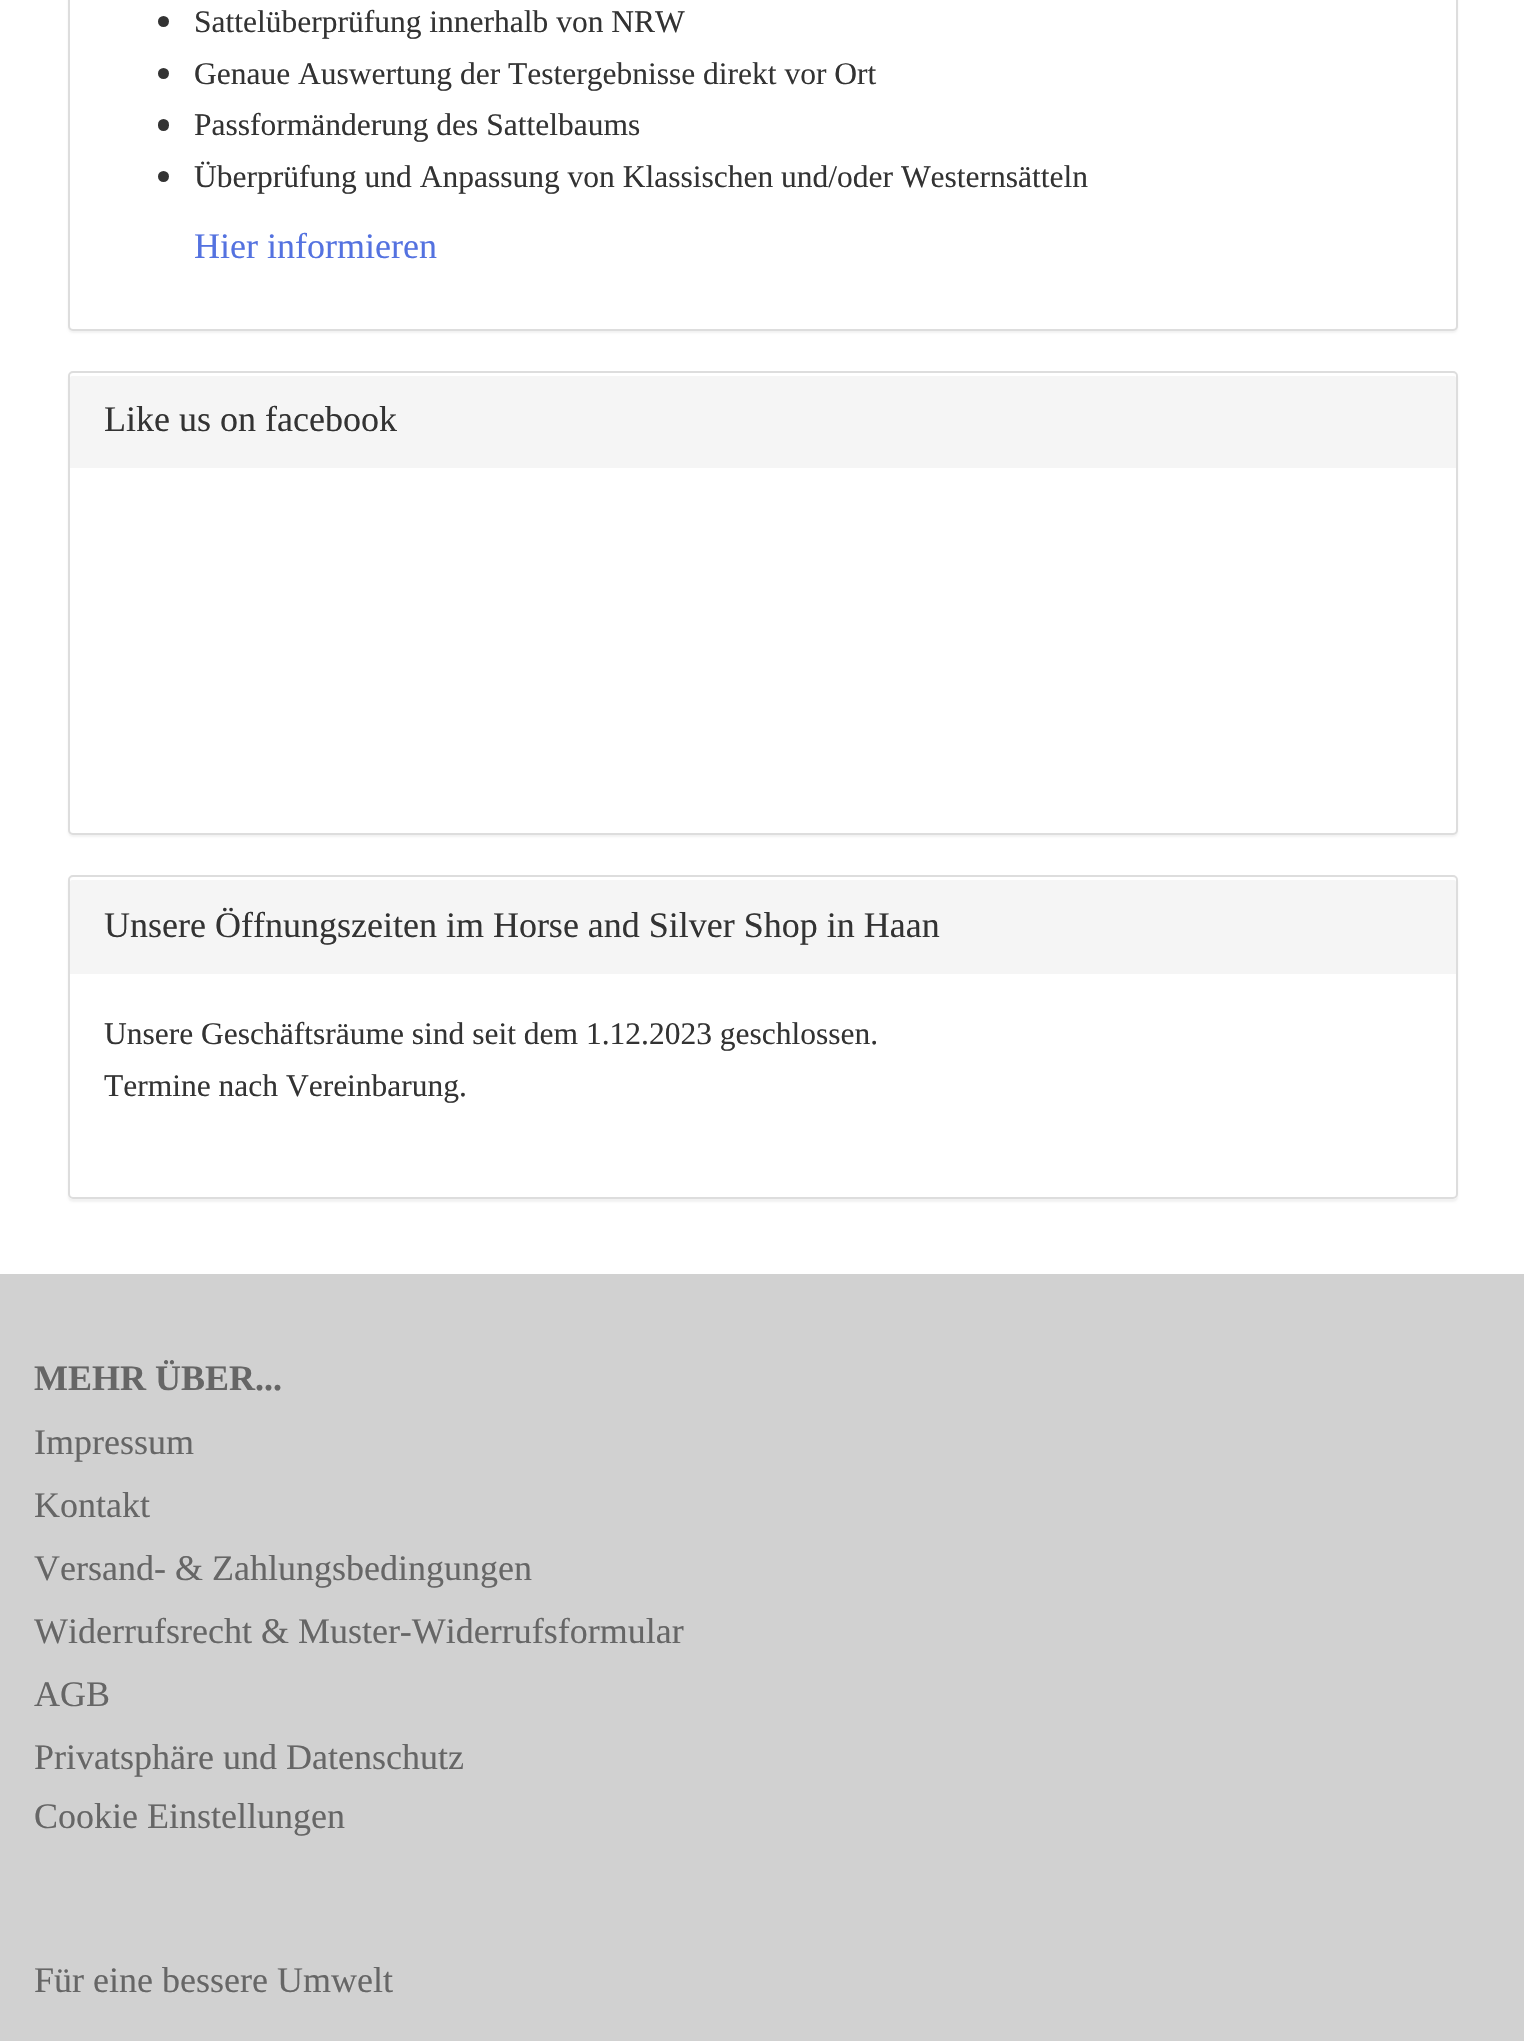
void draw(SkCanvas* canvas) {
	SkPaint paint;
	paint.setAntiAlias(true);
	auto svgPath = [&](const char* data, bool evenOdd = false) {
		SkPath result = *SkParsePath::FromSVGString(data);
		if (evenOdd) result.setFillType(SkPathFillType::kEvenOdd);
		return result;
	};
	canvas->clear(0xffffffff);
	paint.setColor(0x0d000000);
	paint.setMaskFilter(SkMaskFilter::MakeBlur(kNormal_SkBlurStyle, 1));
	canvas->drawRoundRect(SkRect::MakeXYWH(68, -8, 1390, 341), 5, 5, paint);
	paint.setMaskFilter(nullptr);
	paint.setColor(0xffffffff);
	canvas->drawRoundRect(SkRect::MakeXYWH(69, -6, 1388, 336), 4, 4, paint);
	paint.setStroke(true);
	paint.setStrokeWidth(2);
	paint.setColor(0xffdddddd);
	canvas->drawRoundRect(SkRect::MakeXYWH(69, -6, 1388, 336), 4, 4, paint);
	paint.setStroke(false);
	paint.setColor(0xff333333);
	canvas->drawCircle(163.5, 21.5, 5.5, paint);
	SkFont f1(fontMgr->matchFamilyStyle("Liberation Serif", SkFontStyle::Normal()), 31.5);
	f1.setSubpixel(true);
	canvas->drawString("Sattelüberprüfung innerhalb von NRW", 194, 32, f1, paint);
	canvas->drawCircle(163.5, 73.5, 5.5, paint);
	canvas->drawString("Genaue Auswertung der Testergebnisse direkt vor Ort", 194, 84, f1, paint);
	canvas->drawRoundRect(SkRect::MakeXYWH(158, 119, 11, 12), 5.5, 5.5, paint);
	canvas->drawString("Passformänderung des Sattelbaums", 194, 135, f1, paint);
	canvas->drawCircle(163.5, 176.5, 5.5, paint);
	canvas->drawString("Überprüfung und Anpassung von Klassischen und/oder Westernsätteln", 194, 187, f1, paint);
	SkFont f2(fontMgr->matchFamilyStyle("Liberation Serif", SkFontStyle::Normal()), 36);
	f2.setSubpixel(true);
	paint.setColor(0xff5472e0);
	canvas->drawString("Hier informieren", 194, 258, f2, paint);
	paint.setColor(0x0d000000);
	paint.setMaskFilter(SkMaskFilter::MakeBlur(kNormal_SkBlurStyle, 1));
	canvas->drawRoundRect(SkRect::MakeXYWH(68, 374, 1390, 463), 5, 5, paint);
	paint.setMaskFilter(nullptr);
	paint.setColor(0xffffffff);
	canvas->drawRoundRect(SkRect::MakeXYWH(69, 372, 1388, 462), 4, 4, paint);
	paint.setStroke(true);
	paint.setColor(0xffdddddd);
	canvas->drawRoundRect(SkRect::MakeXYWH(69, 372, 1388, 462), 4, 4, paint);
	paint.setStroke(false);
	paint.setColor(0xfff5f5f5);
	canvas->drawPath(svgPath("M72 374H1454C1455 374 1456 375 1456 376V468H70V376C70 375 71 374 72 374Z"), paint);
	paint.setColor(0xffffffff);
	canvas->drawPath(svgPath("M72 376H1454C1455 376 1456 377 1456 378C1456 376 1456 374 1454 374H72C70 374 70 376 70 378C70 377 71 376 72 376Z"), paint);
	paint.setColor(0xff333333);
	canvas->drawString("Like us on facebook", 104, 431, f2, paint);
	canvas->save();
	canvas->clipPath(svgPath("M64 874H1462V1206H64ZM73 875H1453C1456 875 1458 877 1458 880V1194C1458 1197 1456 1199 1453 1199H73C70 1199 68 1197 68 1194V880C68 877 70 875 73 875Z", true), true);
	paint.setColor(0x0d000000);
	paint.setMaskFilter(SkMaskFilter::MakeBlur(kNormal_SkBlurStyle, 1));
	canvas->drawRoundRect(SkRect::MakeXYWH(68, 878, 1390, 324), 5, 5, paint);
	paint.setMaskFilter(nullptr);
	canvas->restore();
	paint.setStroke(true);
	paint.setColor(0xffdddddd);
	canvas->drawRoundRect(SkRect::MakeXYWH(69, 876, 1388, 322), 4, 4, paint);
	paint.setStroke(false);
	paint.setColor(0xfff5f5f5);
	canvas->drawPath(svgPath("M72 878H1454C1455 878 1456 879 1456 880V974H70V880C70 879 71 878 72 878Z"), paint);
	paint.setColor(0xffffffff);
	canvas->drawPath(svgPath("M72 880H1454C1455 880 1456 881 1456 882C1456 880 1456 878 1454 878H72C70 878 70 880 70 882C70 881 71 880 72 880Z"), paint);
	paint.setColor(0xff333333);
	canvas->drawString("Unsere Öffnungszeiten im Horse and Silver Shop in Haan", 104, 937, f2, paint);
	canvas->drawString("Unsere Geschäftsräume sind seit dem 1.12.2023 geschlossen.", 104, 1044, f1, paint);
	canvas->drawString("Termine nach Vereinbarung.", 104, 1096, f1, paint);
	paint.setColor(0xffd1d1d1);
	canvas->drawRect(SkRect::MakeXYWH(0, 1274, 1524, 767), paint);
	SkFont f3(fontMgr->matchFamilyStyle("Liberation Serif", SkFontStyle::Bold()), 36);
	f3.setSubpixel(true);
	paint.setColor(0xff666666);
	canvas->drawString("MEHR ÜBER...", 34, 1390, f3, paint);
	canvas->drawString("Impressum", 34, 1454, f2, paint);
	canvas->drawString("Kontakt", 34, 1517, f2, paint);
	canvas->drawString("Versand- & Zahlungsbedingungen", 34, 1580, f2, paint);
	canvas->drawString("Widerrufsrecht & Muster-Widerrufsformular", 34, 1643, f2, paint);
	canvas->drawString("AGB", 34, 1706, f2, paint);
	canvas->drawString("Privatsphäre und Datenschutz", 34, 1769, f2, paint);
	canvas->drawString("Cookie Einstellungen", 34, 1828, f2, paint);
	canvas->drawString("Für eine bessere Umwelt", 34, 1992, f2, paint);
}
